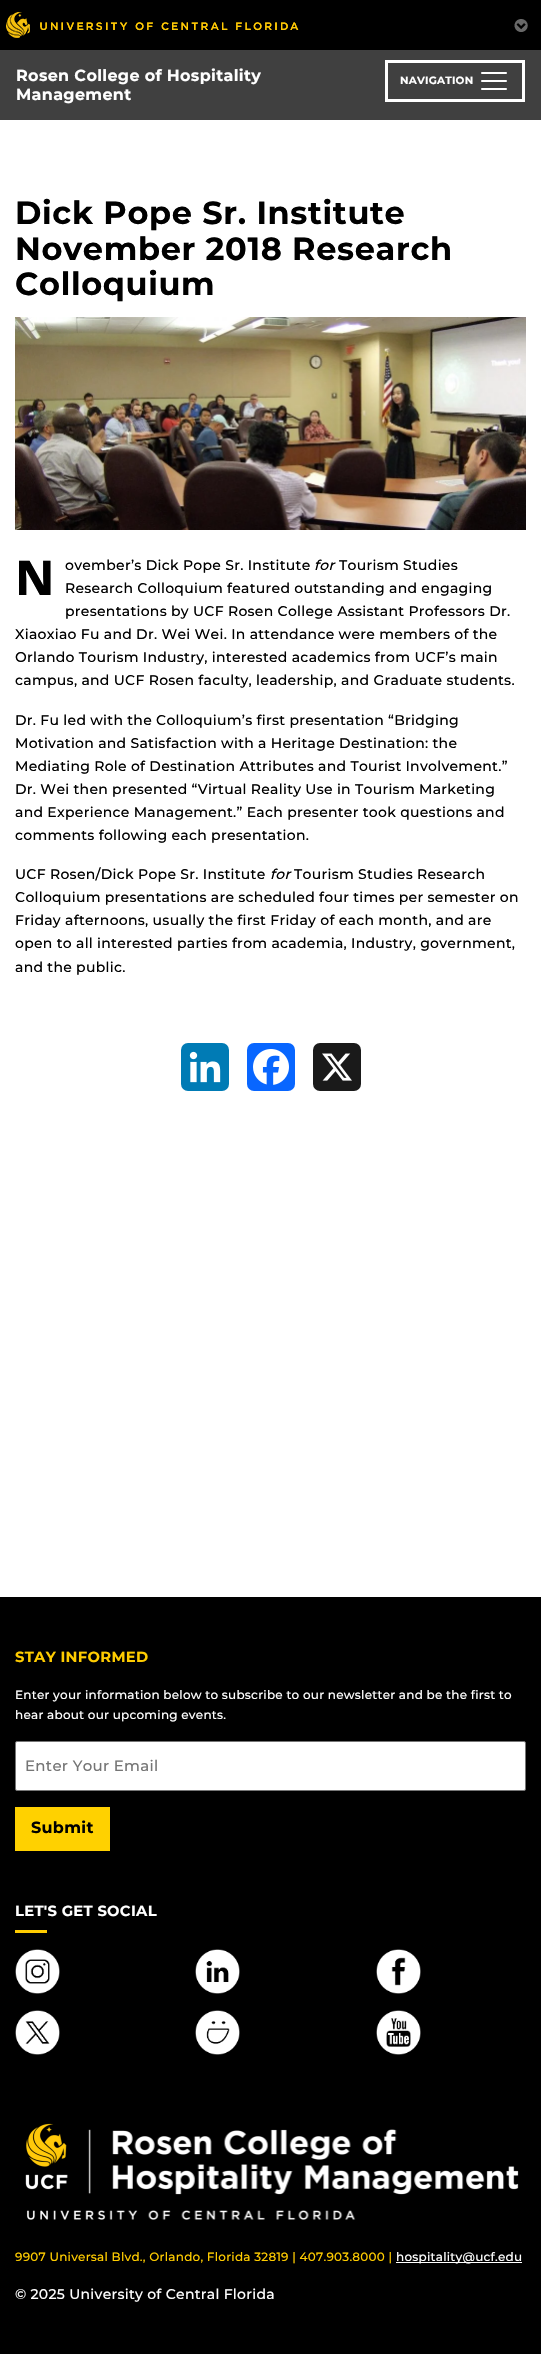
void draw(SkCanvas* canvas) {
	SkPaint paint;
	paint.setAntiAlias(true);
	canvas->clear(0xffffffff);
	paint.setColor(0xff000000);
	canvas->drawRect(SkRect::MakeXYWH(0, 0, 541, 50), paint);
	canvas->drawImageRect(SkImages::DeferredFromEncodedData(SkData::MakeFromFileName("img1.png")), SkRect::MakeXYWH(6, 12, 293, 26), SkSamplingOptions());
	canvas->drawImageRect(SkImages::DeferredFromEncodedData(SkData::MakeFromFileName("img2.png")), SkRect::MakeXYWH(514, 19, 14, 13), SkSamplingOptions());
	paint.setColor(0xff404040);
	canvas->drawRect(SkRect::MakeXYWH(0, 50, 541, 70), paint);
	SkFont f1(fontMgr->matchFamilyStyle("Montserrat", SkFontStyle::Bold()), 16);
	f1.setSubpixel(true);
	paint.setColor(0xffffffff);
	canvas->drawString("Rosen College of Hospitality", 16, 81, f1, paint);
	canvas->drawString("Management", 16, 100, f1, paint);
	paint.setStroke(true);
	paint.setStrokeWidth(3);
	canvas->drawRect(SkRect::MakeXYWH(386.5, 61.5, 137, 39), paint);
	SkFont f2(fontMgr->matchFamilyStyle("Montserrat", SkFontStyle::Bold()), 10.5);
	f2.setSubpixel(true);
	paint.setStroke(false);
	canvas->drawString("NAVIGATION", 400, 84, f2, paint);
	canvas->drawImageRect(SkImages::DeferredFromEncodedData(SkData::MakeFromFileName("img3.png")), SkRect::MakeXYWH(481, 72, 26, 18), SkSamplingOptions());
	SkFont f3(fontMgr->matchFamilyStyle("Montserrat", SkFontStyle::Bold()), 32);
	f3.setSubpixel(true);
	paint.setColor(0xff000000);
	canvas->drawString("Dick Pope Sr. Institute", 15, 224, f3, paint);
	canvas->drawString("November 2018 Research", 15, 260, f3, paint);
	canvas->drawString("Colloquium", 15, 295, f3, paint);
	canvas->drawImageRect(SkImages::DeferredFromEncodedData(SkData::MakeFromFileName("img4.png")), SkRect::MakeXYWH(15, 317, 511, 213), SkSamplingOptions());
	SkFont f4(fontMgr->matchFamilyStyle("Noto Sans", SkFontStyle(800, SkFontStyle::kNormal_Width, SkFontStyle::kUpright_Slant)), 48);
	f4.setSubpixel(true);
	canvas->drawString("N", 15, 595, f4, paint);
	SkFont f5(fontMgr->matchFamilyStyle("Montserrat", SkFontStyle(500, SkFontStyle::kNormal_Width, SkFontStyle::kUpright_Slant)), 14);
	f5.setSubpixel(true);
	canvas->drawString("ovember’s Dick Pope Sr. Institute", 65, 570, f5, paint);
	SkFont f6(fontMgr->matchFamilyStyle("Montserrat", SkFontStyle(500, SkFontStyle::kNormal_Width, SkFontStyle::kItalic_Slant)), 14);
	f6.setSubpixel(true);
	canvas->drawString("for", 314, 570, f6, paint);
	canvas->drawString("Tourism Studies", 339, 570, f5, paint);
	canvas->drawString("Research Colloquium featured outstanding and engaging", 65, 593, f5, paint);
	canvas->drawString("presentations by UCF Rosen College Assistant Professors Dr.", 65, 616, f5, paint);
	canvas->drawString("Xiaoxiao Fu and Dr. Wei Wei. In attendance were members of the", 15, 639, f5, paint);
	canvas->drawString("Orlando Tourism Industry, interested academics from UCF’s main", 15, 662, f5, paint);
	canvas->drawString("campus, and UCF Rosen faculty, leadership, and Graduate students.", 15, 685, f5, paint);
	canvas->drawString("Dr. Fu led with the Colloquium’s first presentation “Bridging", 15, 725, f5, paint);
	canvas->drawString("Motivation and Satisfaction with a Heritage Destination: the", 15, 748, f5, paint);
	canvas->drawString("Mediating Role of Destination Attributes and Tourist Involvement.”", 15, 771, f5, paint);
	canvas->drawString("Dr. Wei then presented “Virtual Reality Use in Tourism Marketing", 15, 794, f5, paint);
	canvas->drawString("and Experience Management.” Each presenter took questions and", 15, 817, f5, paint);
	canvas->drawString("comments following each presentation.", 15, 840, f5, paint);
	canvas->drawString("UCF Rosen/Dick Pope Sr. Institute", 15, 879, f5, paint);
	canvas->drawString("for", 270, 879, f6, paint);
	canvas->drawString("Tourism Studies Research", 294, 879, f5, paint);
	canvas->drawString("Colloquium presentations are scheduled four times per semester on", 15, 902, f5, paint);
	canvas->drawString("Friday afternoons, usually the first Friday of each month, and are", 15, 925, f5, paint);
	canvas->drawString("open to all interested parties from academia, Industry, government,", 15, 948, f5, paint);
	canvas->drawString("and the public.", 15, 972, f5, paint);
	paint.setColor(0xff007bb5);
	canvas->drawRoundRect(SkRect::MakeXYWH(181, 1043, 48, 48), 7, 7, paint);
	canvas->drawImageRect(SkImages::DeferredFromEncodedData(SkData::MakeFromFileName("img5.png")), SkRect::MakeXYWH(189, 1051, 32, 32), SkSamplingOptions());
	paint.setColor(0xff0866ff);
	canvas->drawRoundRect(SkRect::MakeXYWH(247, 1043, 48, 48), 7, 7, paint);
	canvas->drawImageRect(SkImages::DeferredFromEncodedData(SkData::MakeFromFileName("img6.png")), SkRect::MakeXYWH(253, 1049, 36, 36), SkSamplingOptions());
	paint.setColor(0xff1a1a1a);
	canvas->drawRoundRect(SkRect::MakeXYWH(313, 1043, 48, 48), 7, 7, paint);
	canvas->drawImageRect(SkImages::DeferredFromEncodedData(SkData::MakeFromFileName("img7.png")), SkRect::MakeXYWH(322, 1053, 30, 28), SkSamplingOptions());
	paint.setColor(0xff000000);
	canvas->drawRect(SkRect::MakeXYWH(0, 1597, 541, 757), paint);
	SkFont f7(fontMgr->matchFamilyStyle("Montserrat", SkFontStyle::Bold()), 14.75);
	f7.setSubpixel(true);
	paint.setColor(0xffffcc00);
	canvas->drawString("STAY INFORMED", 15, 1662, f7, paint);
	SkFont f8(fontMgr->matchFamilyStyle("Montserrat", SkFontStyle(500, SkFontStyle::kNormal_Width, SkFontStyle::kUpright_Slant)), 12);
	f8.setSubpixel(true);
	paint.setColor(0xffffffff);
	canvas->drawString("Enter your information below to subscribe to our newsletter and be the first to", 15, 1699, f8, paint);
	canvas->drawString("hear about our upcoming events.", 15, 1719, f8, paint);
	canvas->drawRoundRect(SkRect::MakeXYWH(15.5, 1741.5, 510, 49), 1.5, 1.5, paint);
	paint.setStroke(true);
	paint.setStrokeWidth(1);
	paint.setColor(0xff767676);
	canvas->drawRoundRect(SkRect::MakeXYWH(15.5, 1741.5, 510, 49), 1.5, 1.5, paint);
	SkFont f9(fontMgr->matchFamilyStyle("Montserrat", SkFontStyle(500, SkFontStyle::kNormal_Width, SkFontStyle::kUpright_Slant)), 15);
	f9.setSubpixel(true);
	paint.setStroke(false);
	paint.setColor(0xff757575);
	canvas->drawString("Enter Your Email", 25, 1771, f9, paint);
	paint.setColor(0xffffd100);
	canvas->drawRect(SkRect::MakeXYWH(15, 1807, 95, 44), paint);
	paint.setColor(0xff000000);
	canvas->drawString("Submit", 31, 1833, f1, paint);
	paint.setColor(0xffffffff);
	canvas->drawString("LET'S GET SOCIAL", 15, 1916, f7, paint);
	paint.setColor(0xffffcc00);
	canvas->drawRect(SkRect::MakeXYWH(15, 1930, 32, 3), paint);
	canvas->drawImageRect(SkImages::DeferredFromEncodedData(SkData::MakeFromFileName("img8.png")), SkRect::MakeXYWH(15, 1949, 45, 45), SkSamplingOptions());
	canvas->drawImageRect(SkImages::DeferredFromEncodedData(SkData::MakeFromFileName("img9.png")), SkRect::MakeXYWH(195, 1949, 45, 45), SkSamplingOptions());
	canvas->drawImageRect(SkImages::DeferredFromEncodedData(SkData::MakeFromFileName("img10.png")), SkRect::MakeXYWH(376, 1949, 45, 45), SkSamplingOptions());
	canvas->drawImageRect(SkImages::DeferredFromEncodedData(SkData::MakeFromFileName("img11.png")), SkRect::MakeXYWH(15, 2010, 45, 45), SkSamplingOptions());
	canvas->drawImageRect(SkImages::DeferredFromEncodedData(SkData::MakeFromFileName("img12.png")), SkRect::MakeXYWH(195, 2010, 45, 45), SkSamplingOptions());
	canvas->drawImageRect(SkImages::DeferredFromEncodedData(SkData::MakeFromFileName("img13.png")), SkRect::MakeXYWH(376, 2010, 45, 45), SkSamplingOptions());
	canvas->drawImageRect(SkImages::DeferredFromEncodedData(SkData::MakeFromFileName("img14.png")), SkRect::MakeXYWH(25, 2123, 494, 97), SkSamplingOptions());
	canvas->drawString("9907 Universal Blvd., Orlando, Florida 32819 | 407.903.8000 |", 15, 2261, f8, paint);
	paint.setColor(0xffffffff);
	canvas->drawRect(SkRect::MakeXYWH(396, 2262, 126, 1), paint);
	canvas->drawString("hospitality@ucf.edu", 396, 2261, f8, paint);
	canvas->drawString("© 2025 University of Central Florida", 15, 2299, f5, paint);
}
